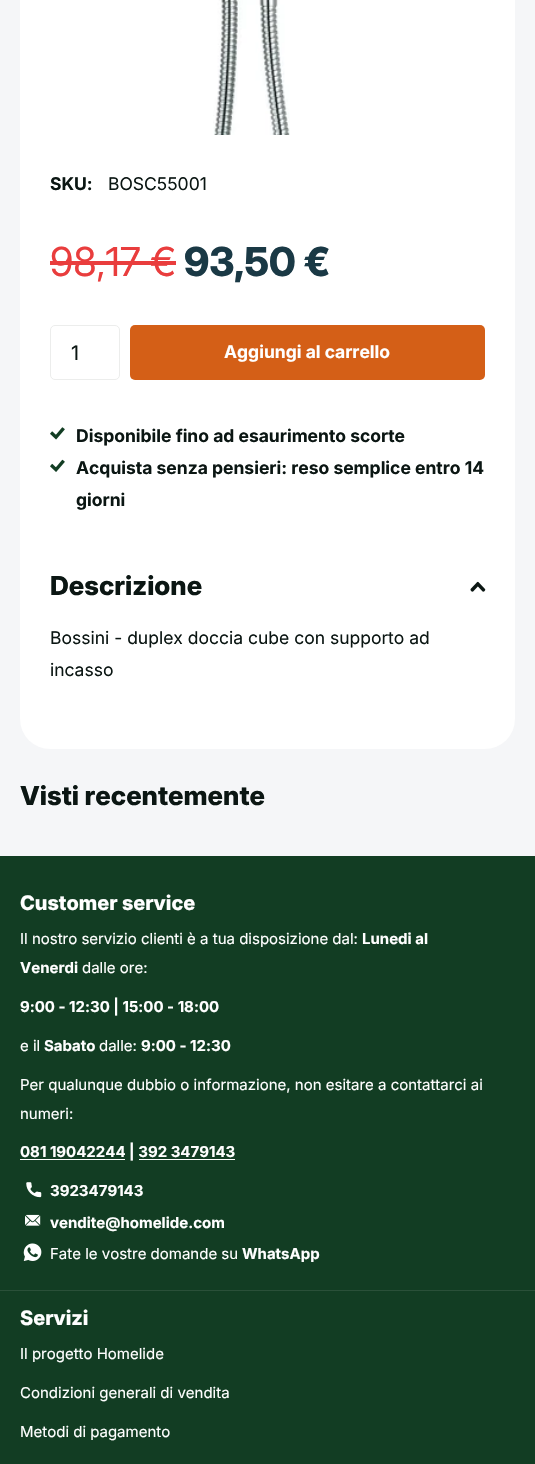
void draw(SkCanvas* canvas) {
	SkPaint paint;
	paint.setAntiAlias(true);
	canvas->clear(0xfff5f6f8);
	paint.setColor(0xffffffff);
	canvas->drawRoundRect(SkRect::MakeXYWH(20, -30, 495, 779), 30, 30, paint);
	canvas->drawImageRect(SkImages::DeferredFromEncodedData(SkData::MakeFromFileName("img1.png")), SkRect::MakeXYWH(213, 0, 77, 135), SkSamplingOptions());
	SkFont f1(fontMgr->matchFamilyStyle("Inter", SkFontStyle::Bold()), 17.5);
	f1.setSubpixel(true);
	paint.setColor(0xff0b1613);
	canvas->drawString("SKU:", 50, 190, f1, paint);
	SkFont f2(fontMgr->matchFamilyStyle("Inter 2", SkFontStyle::Normal()), 17.5);
	f2.setSubpixel(true);
	canvas->drawString("BOSC55001", 108, 190, f2, paint);
	SkFont f3(fontMgr->matchFamilyStyle("Inter", SkFontStyle::Normal()), 40);
	f3.setSubpixel(true);
	paint.setColor(0xffe93d3d);
	canvas->drawString("98,17 €", 50, 276, f3, paint);
	canvas->drawRect(SkRect::MakeXYWH(50, 261, 126, 4), paint);
	SkFont f4(fontMgr->matchFamilyStyle("Inter 2", SkFontStyle(800, SkFontStyle::kNormal_Width, SkFontStyle::kUpright_Slant)), 40);
	f4.setSubpixel(true);
	paint.setColor(0xff1a3945);
	canvas->drawString("93,50 €", 184, 276, f4, paint);
	paint.setStroke(true);
	paint.setStrokeWidth(1);
	paint.setColor(0xffecedec);
	canvas->drawRoundRect(SkRect::MakeXYWH(50.5, 325.5, 69, 54), 4.5, 4.5, paint);
	SkFont f5(fontMgr->matchFamilyStyle("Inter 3", SkFontStyle::Normal()), 20);
	f5.setSubpixel(true);
	paint.setStroke(false);
	paint.setColor(0xff0b1613);
	canvas->drawString("1", 71, 360, f5, paint);
	paint.setColor(0xffd45f17);
	canvas->drawRoundRect(SkRect::MakeXYWH(130, 325, 355, 55), 5, 5, paint);
	paint.setColor(0xffffffff);
	canvas->drawString("Aggiungi al carrello", 224, 358, f1, paint);
	canvas->drawImageRect(SkImages::DeferredFromEncodedData(SkData::MakeFromFileName("img2.png")), SkRect::MakeXYWH(50, 427, 15, 13), SkSamplingOptions());
	paint.setColor(0xff0b1613);
	canvas->drawString("Disponibile fino ad esaurimento scorte", 76, 442, f1, paint);
	canvas->drawImageRect(SkImages::DeferredFromEncodedData(SkData::MakeFromFileName("img3.png")), SkRect::MakeXYWH(50, 459, 15, 13), SkSamplingOptions());
	canvas->drawString("Acquista senza pensieri: reso semplice entro 14", 76, 474, f1, paint);
	canvas->drawString("giorni", 76, 506, f1, paint);
	SkFont f6(fontMgr->matchFamilyStyle("Inter", SkFontStyle(800, SkFontStyle::kNormal_Width, SkFontStyle::kUpright_Slant)), 26.25);
	f6.setSubpixel(true);
	canvas->drawString("Descrizione", 50, 595, f6, paint);
	canvas->drawImageRect(SkImages::DeferredFromEncodedData(SkData::MakeFromFileName("img4.png")), SkRect::MakeXYWH(470, 581, 16, 11), SkSamplingOptions());
	canvas->drawString("Bossini - duplex doccia cube con supporto ad", 50, 644, f2, paint);
	canvas->drawString("incasso", 50, 676, f2, paint);
	canvas->drawString("Visti recentemente", 20, 805, f6, paint);
	paint.setColor(0xff123d23);
	canvas->drawRect(SkRect::MakeXYWH(0, 856, 535, 608), paint);
	SkFont f7(fontMgr->matchFamilyStyle("Inter 3", SkFontStyle(800, SkFontStyle::kNormal_Width, SkFontStyle::kUpright_Slant)), 20);
	f7.setSubpixel(true);
	paint.setColor(0xffffffff);
	canvas->drawString("Customer service", 20, 910, f7, paint);
	SkFont f8(fontMgr->matchFamilyStyle("Inter 2", SkFontStyle::Normal()), 15);
	f8.setSubpixel(true);
	canvas->drawString("Il nostro servizio clienti è a tua disposizione dal:", 20, 944, f8, paint);
	SkFont f9(fontMgr->matchFamilyStyle("Inter", SkFontStyle::Bold()), 15);
	f9.setSubpixel(true);
	canvas->drawString("Lunedi al", 362, 944, f9, paint);
	canvas->drawString("Venerdi", 20, 973, f9, paint);
	canvas->drawString("dalle ore:", 82, 973, f8, paint);
	canvas->drawString("9:00 - 12:30 | 15:00 - 18:00", 20, 1012, f9, paint);
	canvas->drawString("e il", 20, 1051, f8, paint);
	canvas->drawString("Sabato", 44, 1051, f9, paint);
	canvas->drawString("dalle:", 99, 1051, f8, paint);
	canvas->drawString("9:00 - 12:30", 141, 1051, f9, paint);
	canvas->drawString("Per qualunque dubbio o informazione, non esitare a contattarci ai", 20, 1090, f8, paint);
	canvas->drawString("numeri:", 20, 1119, f8, paint);
	canvas->drawRect(SkRect::MakeXYWH(20, 1159, 105, 1), paint);
	canvas->drawString("081 19042244 | 392 3479143", 20, 1157, f9, paint);
	canvas->drawRect(SkRect::MakeXYWH(139, 1159, 96, 1), paint);
	canvas->drawImageRect(SkImages::DeferredFromEncodedData(SkData::MakeFromFileName("img5.png")), SkRect::MakeXYWH(26, 1182, 16, 16), SkSamplingOptions());
	canvas->drawString("3923479143", 50, 1196, f9, paint);
	canvas->drawImageRect(SkImages::DeferredFromEncodedData(SkData::MakeFromFileName("img6.png")), SkRect::MakeXYWH(25, 1214, 16, 12), SkSamplingOptions());
	canvas->drawString("vendite@homelide.com", 50, 1228, f9, paint);
	canvas->drawImageRect(SkImages::DeferredFromEncodedData(SkData::MakeFromFileName("img7.png")), SkRect::MakeXYWH(23, 1243, 19, 18), SkSamplingOptions());
	canvas->drawString("Fate le vostre domande su", 50, 1259, f8, paint);
	canvas->drawString("WhatsApp", 242, 1259, f9, paint);
	paint.setColor(0xff2a5039);
	canvas->drawRect(SkRect::MakeXYWH(0, 1290, 535, 1), paint);
	paint.setColor(0xffffffff);
	canvas->drawString("Servizi", 20, 1325, f7, paint);
	canvas->drawString("Il progetto Homelide", 20, 1359, f8, paint);
	canvas->drawString("Condizioni generali di vendita", 20, 1398, f8, paint);
	canvas->drawString("Metodi di pagamento", 20, 1437, f8, paint);
}
